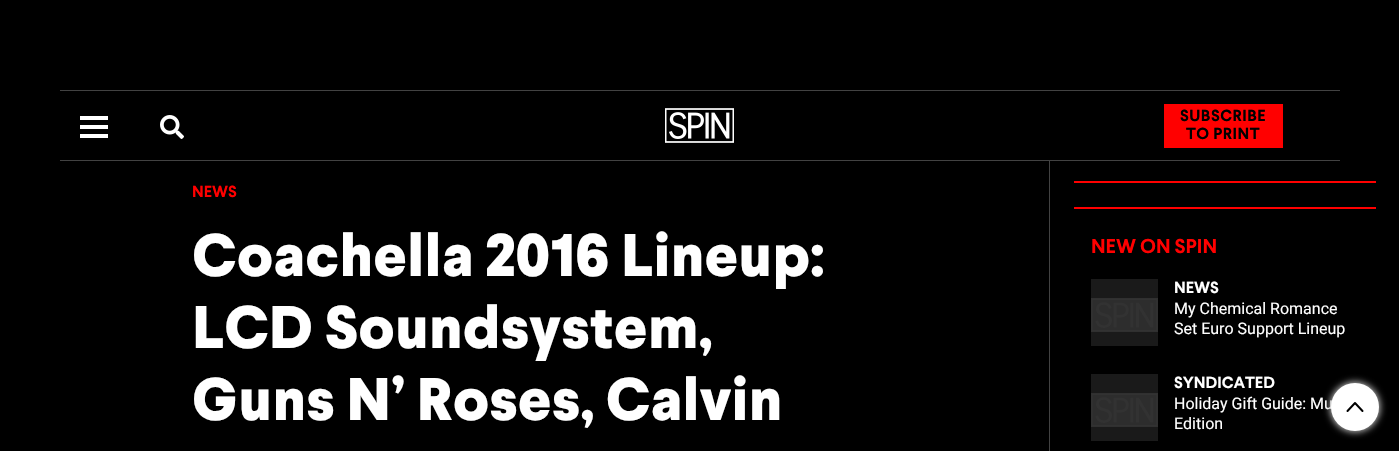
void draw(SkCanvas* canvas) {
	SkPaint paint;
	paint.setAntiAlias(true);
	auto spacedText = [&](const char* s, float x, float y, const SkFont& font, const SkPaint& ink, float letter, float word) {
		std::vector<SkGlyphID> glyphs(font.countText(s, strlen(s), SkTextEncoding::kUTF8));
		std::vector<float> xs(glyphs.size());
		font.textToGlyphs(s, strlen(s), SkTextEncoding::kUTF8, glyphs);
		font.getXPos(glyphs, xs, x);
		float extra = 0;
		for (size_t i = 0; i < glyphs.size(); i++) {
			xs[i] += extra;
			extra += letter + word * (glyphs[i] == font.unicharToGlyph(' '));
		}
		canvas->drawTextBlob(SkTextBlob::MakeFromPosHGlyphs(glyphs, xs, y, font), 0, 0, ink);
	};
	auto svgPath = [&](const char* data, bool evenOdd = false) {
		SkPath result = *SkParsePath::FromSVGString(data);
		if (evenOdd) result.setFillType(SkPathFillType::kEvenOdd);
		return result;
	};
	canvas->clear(0xff000000);
	paint.setColor(0xff424242);
	canvas->drawRect(SkRect::MakeXYWH(60, 90, 1280, 1), paint);
	canvas->drawRect(SkRect::MakeXYWH(60, 160, 1280, 1), paint);
	paint.setColor(0xffffffff);
	canvas->drawRect(SkRect::MakeXYWH(80, 134, 28, 4), paint);
	canvas->drawRect(SkRect::MakeXYWH(80, 116, 28, 4), paint);
	canvas->drawRect(SkRect::MakeXYWH(80, 125, 28, 4), paint);
	canvas->drawImageRect(SkImages::DeferredFromEncodedData(SkData::MakeFromFileName("img1.png")), SkRect::MakeXYWH(160, 115, 24, 24), SkSamplingOptions());
	canvas->drawImageRect(SkImages::DeferredFromEncodedData(SkData::MakeFromFileName("img2.png")), SkRect::MakeXYWH(665, 108, 69, 35), SkSamplingOptions());
	paint.setColor(0xffff0000);
	canvas->drawRect(SkRect::MakeXYWH(1164, 104, 119, 44), paint);
	SkFont f1(fontMgr->matchFamilyStyle("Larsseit", SkFontStyle::Bold()), 16);
	f1.setSubpixel(true);
	paint.setColor(0xff000000);
	spacedText("SUBSCRIBE", 1180, 121, f1, paint, 0.5, 0);
	spacedText("TO PRINT", 1186, 139, f1, paint, 0.5, 0);
	paint.setColor(0xffff0000);
	canvas->drawString("NEWS", 192, 197, f1, paint);
	SkFont f2(fontMgr->matchFamilyStyle("Larsseit", SkFontStyle(800, SkFontStyle::kNormal_Width, SkFontStyle::kUpright_Slant)), 60);
	f2.setSubpixel(true);
	paint.setColor(0xffffffff);
	canvas->drawString("Coachella 2016 Lineup:", 192, 276, f2, paint);
	canvas->drawString("LCD Soundsystem,", 192, 348, f2, paint);
	canvas->drawString("Guns N’ Roses, Calvin", 192, 420, f2, paint);
	paint.setColor(0xff424242);
	canvas->drawRect(SkRect::MakeXYWH(1049, 161, 1, 290), paint);
	paint.setColor(0xffff0000);
	canvas->drawRect(SkRect::MakeXYWH(1074, 181, 302, 2), paint);
	canvas->drawRect(SkRect::MakeXYWH(1074, 207, 302, 2), paint);
	SkFont f3(fontMgr->matchFamilyStyle("Larsseit", SkFontStyle::Bold()), 20);
	f3.setSubpixel(true);
	canvas->drawString("NEW ON SPIN", 1091, 253, f3, paint);
	paint.setColor(0xff1a1a1a);
	canvas->drawRect(SkRect::MakeXYWH(1091, 279, 67, 67), paint);
	canvas->drawImageRect(SkImages::DeferredFromEncodedData(SkData::MakeFromFileName("img3.png")), SkRect::MakeXYWH(1091, 298, 67, 34), SkSamplingOptions());
	paint.setColor(0xffffffff);
	canvas->drawString("NEWS", 1174, 293, f1, paint);
	SkFont f4(fontMgr->matchFamilyStyle("Roboto", SkFontStyle::Normal()), 16);
	f4.setSubpixel(true);
	canvas->drawString("My Chemical Romance", 1174, 314, f4, paint);
	canvas->drawString("Set Euro Support Lineup", 1174, 334, f4, paint);
	paint.setColor(0xff1a1a1a);
	canvas->drawRect(SkRect::MakeXYWH(1091, 374, 67, 67), paint);
	canvas->drawImageRect(SkImages::DeferredFromEncodedData(SkData::MakeFromFileName("img3.png")), SkRect::MakeXYWH(1091, 393, 67, 34), SkSamplingOptions());
	paint.setColor(0xffffffff);
	canvas->drawString("SYNDICATED", 1174, 388, f1, paint);
	canvas->drawString("Holiday Gift Guide: Mu", 1174, 409, f4, paint);
	canvas->drawString("Edition", 1174, 429, f4, paint);
	paint.setColor(0xffc7c7c7);
	paint.setMaskFilter(SkMaskFilter::MakeBlur(kNormal_SkBlurStyle, 3.5));
	canvas->drawRoundRect(SkRect::MakeXYWH(1330, 382, 50, 50), 25, 25, paint);
	paint.setMaskFilter(nullptr);
	paint.setColor(0xffffffff);
	canvas->drawCircle(1355, 407, 24, paint);
	paint.setStroke(true);
	paint.setStrokeWidth(2);
	paint.setStrokeCap(SkPaint::kRound_Cap);
	paint.setStrokeJoin(SkPaint::kRound_Join);
	paint.setColor(0xff000000);
	canvas->drawPath(svgPath("M1347.5 411L1355 403L1362.5 411"), paint);
}
